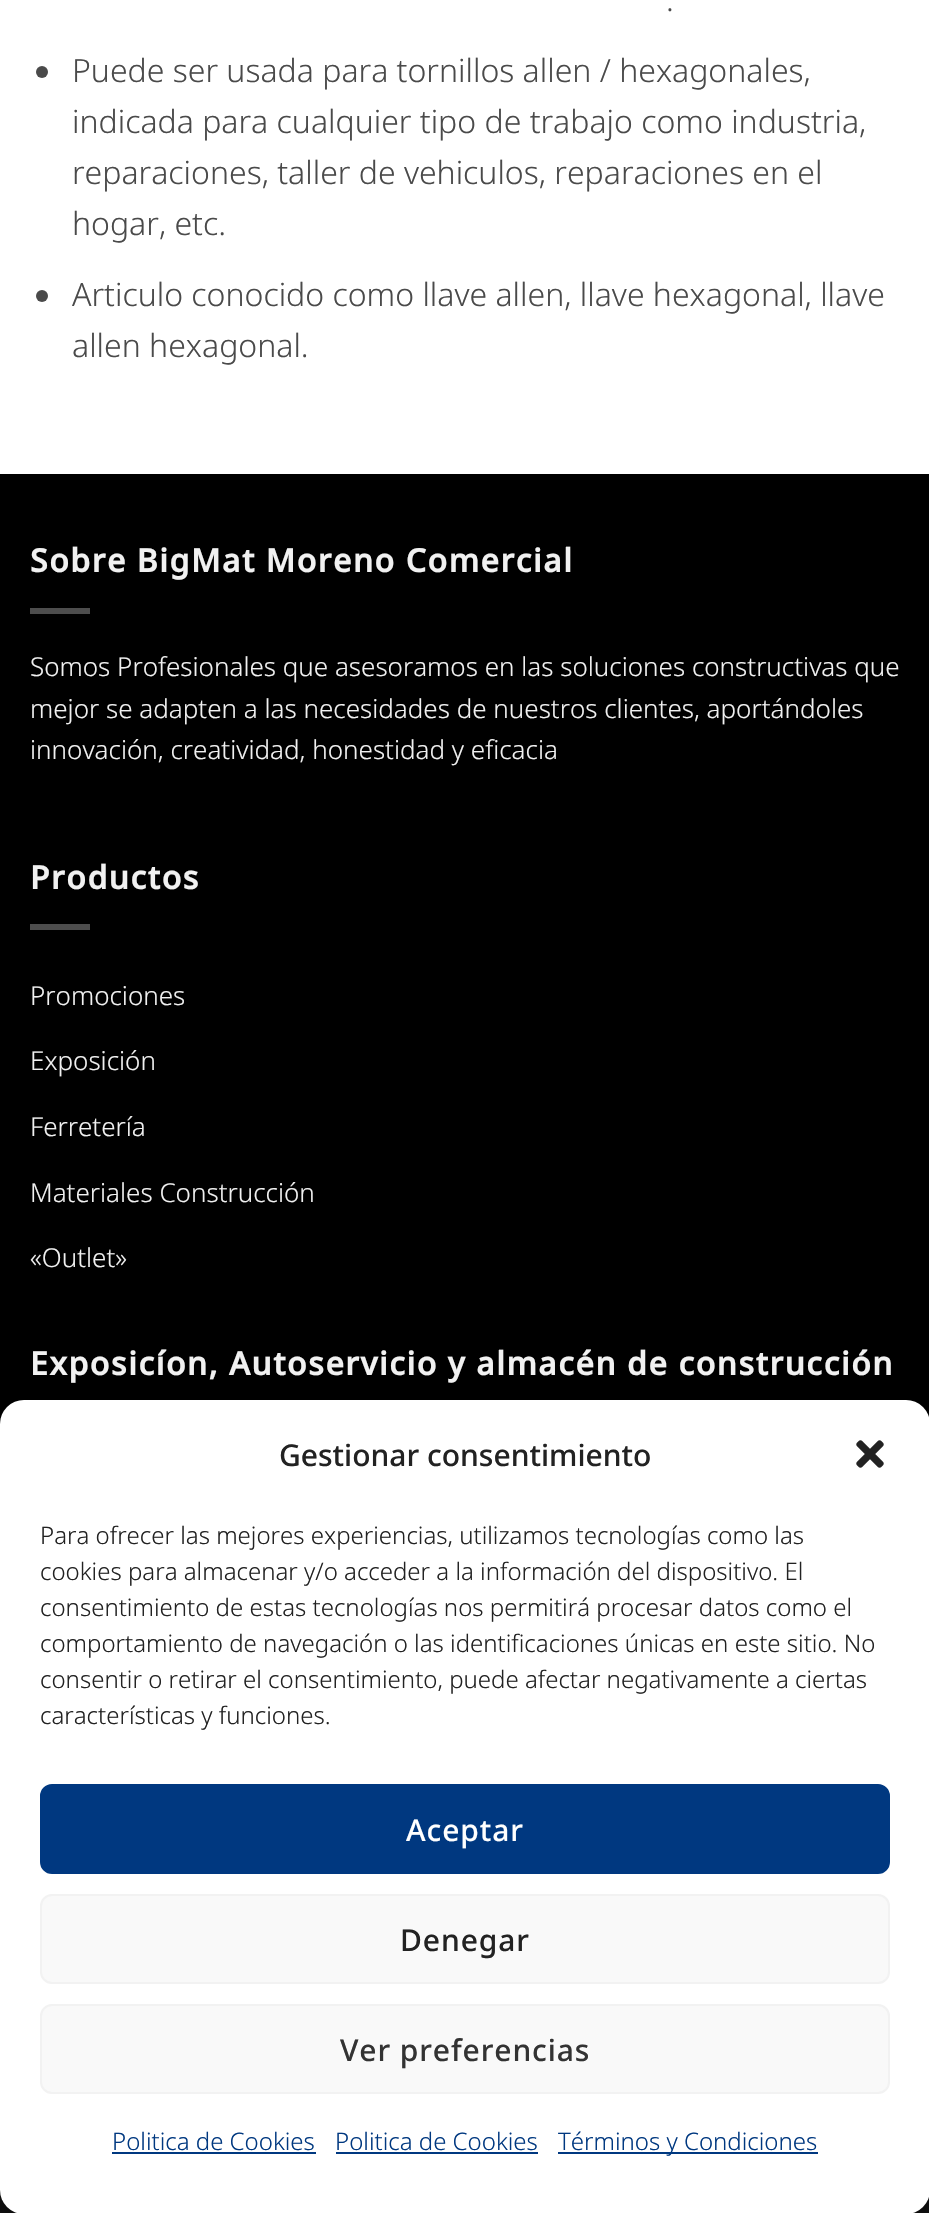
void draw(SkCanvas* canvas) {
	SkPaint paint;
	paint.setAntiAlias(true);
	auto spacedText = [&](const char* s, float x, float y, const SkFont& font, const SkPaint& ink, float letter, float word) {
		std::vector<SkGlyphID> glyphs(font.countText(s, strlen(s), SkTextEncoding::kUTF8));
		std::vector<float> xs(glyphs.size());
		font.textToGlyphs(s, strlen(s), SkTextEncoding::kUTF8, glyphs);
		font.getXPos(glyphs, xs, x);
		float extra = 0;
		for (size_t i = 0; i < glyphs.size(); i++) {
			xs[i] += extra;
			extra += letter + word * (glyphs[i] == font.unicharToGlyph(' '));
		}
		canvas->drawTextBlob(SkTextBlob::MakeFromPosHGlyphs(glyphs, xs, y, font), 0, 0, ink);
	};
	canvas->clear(0xffffffff);
	SkFont f1(fontMgr->matchFamilyStyle("Noto Sans", SkFontStyle(300, SkFontStyle::kNormal_Width, SkFontStyle::kUpright_Slant)), 32);
	f1.setSubpixel(true);
	paint.setColor(0xff4a4a4a);
	canvas->drawString(".", 666, 11, f1, paint);
	canvas->drawCircle(42, 72, 6, paint);
	canvas->drawString("Puede ser usada para tornillos allen / hexagonales,", 72, 82, f1, paint);
	canvas->drawString("indicada para cualquier tipo de trabajo como industria,", 72, 133, f1, paint);
	canvas->drawString("reparaciones, taller de vehiculos, reparaciones en el", 72, 184, f1, paint);
	canvas->drawString("hogar, etc.", 72, 235, f1, paint);
	canvas->drawCircle(42, 296, 6, paint);
	canvas->drawString("Articulo conocido como llave allen, llave hexagonal, llave", 72, 306, f1, paint);
	canvas->drawString("allen hexagonal.", 72, 357, f1, paint);
	paint.setColor(0xff000000);
	canvas->drawRect(SkRect::MakeXYWH(0, 474, 929, 950), paint);
	SkFont f2(fontMgr->matchFamilyStyle("Noto Sans", SkFontStyle::Bold()), 32);
	f2.setSubpixel(true);
	paint.setColor(0xfff1f1f1);
	spacedText("Sobre BigMat Moreno Comercial", 30, 572, f2, paint, 1.6, 0);
	paint.setColor(0xff4d4d4d);
	canvas->drawRect(SkRect::MakeXYWH(30, 608, 60, 6), paint);
	SkFont f3(fontMgr->matchFamilyStyle("Noto Sans", SkFontStyle(300, SkFontStyle::kNormal_Width, SkFontStyle::kUpright_Slant)), 26);
	f3.setSubpixel(true);
	paint.setColor(0xfff1f1f1);
	canvas->drawString("Somos Profesionales que asesoramos en las soluciones constructivas que", 30, 676, f3, paint);
	canvas->drawString("mejor se adapten a las necesidades de nuestros clientes, aportándoles", 30, 718, f3, paint);
	canvas->drawString("innovación, creatividad, honestidad y eficacia", 30, 759, f3, paint);
	spacedText("Productos", 30, 889, f2, paint, 1.6, 0);
	paint.setColor(0xff4d4d4d);
	canvas->drawRect(SkRect::MakeXYWH(30, 924, 60, 6), paint);
	paint.setColor(0xfff1f1f1);
	canvas->drawString("Promociones", 30, 1005, f3, paint);
	canvas->drawString("Exposición", 30, 1070, f3, paint);
	canvas->drawString("Ferretería", 30, 1136, f3, paint);
	canvas->drawString("Materiales Construcción", 30, 1202, f3, paint);
	canvas->drawString("«Outlet»", 30, 1267, f3, paint);
	spacedText("Exposicíon, Autoservicio y almacén de construcción", 30, 1375, f2, paint, 1.6, 0);
	paint.setColor(0xff111111);
	canvas->drawRect(SkRect::MakeXYWH(0, 2190, 929, 23), paint);
	paint.setColor(0x3b000000);
	paint.setMaskFilter(SkMaskFilter::MakeBlur(kNormal_SkBlurStyle, 6));
	canvas->drawRoundRect(SkRect::MakeXYWH(0, 1412, 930, 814), 24, 24, paint);
	paint.setMaskFilter(nullptr);
	paint.setColor(0xffffffff);
	canvas->drawRoundRect(SkRect::MakeXYWH(0, 1400, 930, 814), 24, 24, paint);
	SkFont f4(fontMgr->matchFamilyStyle("Noto Sans", SkFontStyle(500, SkFontStyle::kNormal_Width, SkFontStyle::kUpright_Slant)), 30);
	f4.setSubpixel(true);
	paint.setColor(0xff222222);
	canvas->drawString("Gestionar consentimiento", 279, 1466, f4, paint);
	canvas->drawImageRect(SkImages::DeferredFromEncodedData(SkData::MakeFromFileName("img1.png")), SkRect::MakeXYWH(856, 1440, 28, 28), SkSamplingOptions());
	SkFont f5(fontMgr->matchFamilyStyle("Noto Sans", SkFontStyle(300, SkFontStyle::kNormal_Width, SkFontStyle::kUpright_Slant)), 24);
	f5.setSubpixel(true);
	canvas->drawString("Para ofrecer las mejores experiencias, utilizamos tecnologías como las", 40, 1544, f5, paint);
	canvas->drawString("cookies para almacenar y/o acceder a la información del dispositivo. El", 40, 1580, f5, paint);
	canvas->drawString("consentimiento de estas tecnologías nos permitirá procesar datos como el", 40, 1616, f5, paint);
	canvas->drawString("comportamiento de navegación o las identificaciones únicas en este sitio. No", 40, 1652, f5, paint);
	canvas->drawString("consentir o retirar el consentimiento, puede afectar negativamente a ciertas", 40, 1688, f5, paint);
	canvas->drawString("características y funciones.", 40, 1724, f5, paint);
	paint.setColor(0xff003880);
	canvas->drawRoundRect(SkRect::MakeXYWH(41, 1785, 848, 88), 11, 11, paint);
	paint.setStroke(true);
	paint.setStrokeWidth(2);
	canvas->drawRoundRect(SkRect::MakeXYWH(41, 1785, 848, 88), 11, 11, paint);
	paint.setStroke(false);
	paint.setColor(0xffffffff);
	spacedText("Aceptar", 406, 1841, f4, paint, 0.9, 0);
	paint.setColor(0xfff9f9f9);
	canvas->drawRoundRect(SkRect::MakeXYWH(41, 1895, 848, 88), 11, 11, paint);
	paint.setStroke(true);
	paint.setColor(0xfff2f2f2);
	canvas->drawRoundRect(SkRect::MakeXYWH(41, 1895, 848, 88), 11, 11, paint);
	paint.setStroke(false);
	paint.setColor(0xff222222);
	spacedText("Denegar", 400, 1951, f4, paint, 0.9, 0);
	paint.setColor(0xfff9f9f9);
	canvas->drawRoundRect(SkRect::MakeXYWH(41, 2005, 848, 88), 11, 11, paint);
	paint.setStroke(true);
	paint.setColor(0xfff2f2f2);
	canvas->drawRoundRect(SkRect::MakeXYWH(41, 2005, 848, 88), 11, 11, paint);
	paint.setStroke(false);
	paint.setColor(0xff333333);
	spacedText("Ver preferencias", 340, 2061, f4, paint, 0.9, 0);
	paint.setColor(0xff003880);
	canvas->drawString("Politica de Cookies", 112, 2150, f5, paint);
	canvas->drawRect(SkRect::MakeXYWH(112, 2152, 204, 2), paint);
	canvas->drawString("Politica de Cookies", 335, 2150, f5, paint);
	canvas->drawRect(SkRect::MakeXYWH(336, 2152, 202, 2), paint);
	canvas->drawRect(SkRect::MakeXYWH(558, 2152, 260, 2), paint);
	canvas->drawString("Términos y Condiciones", 558, 2150, f5, paint);
}
